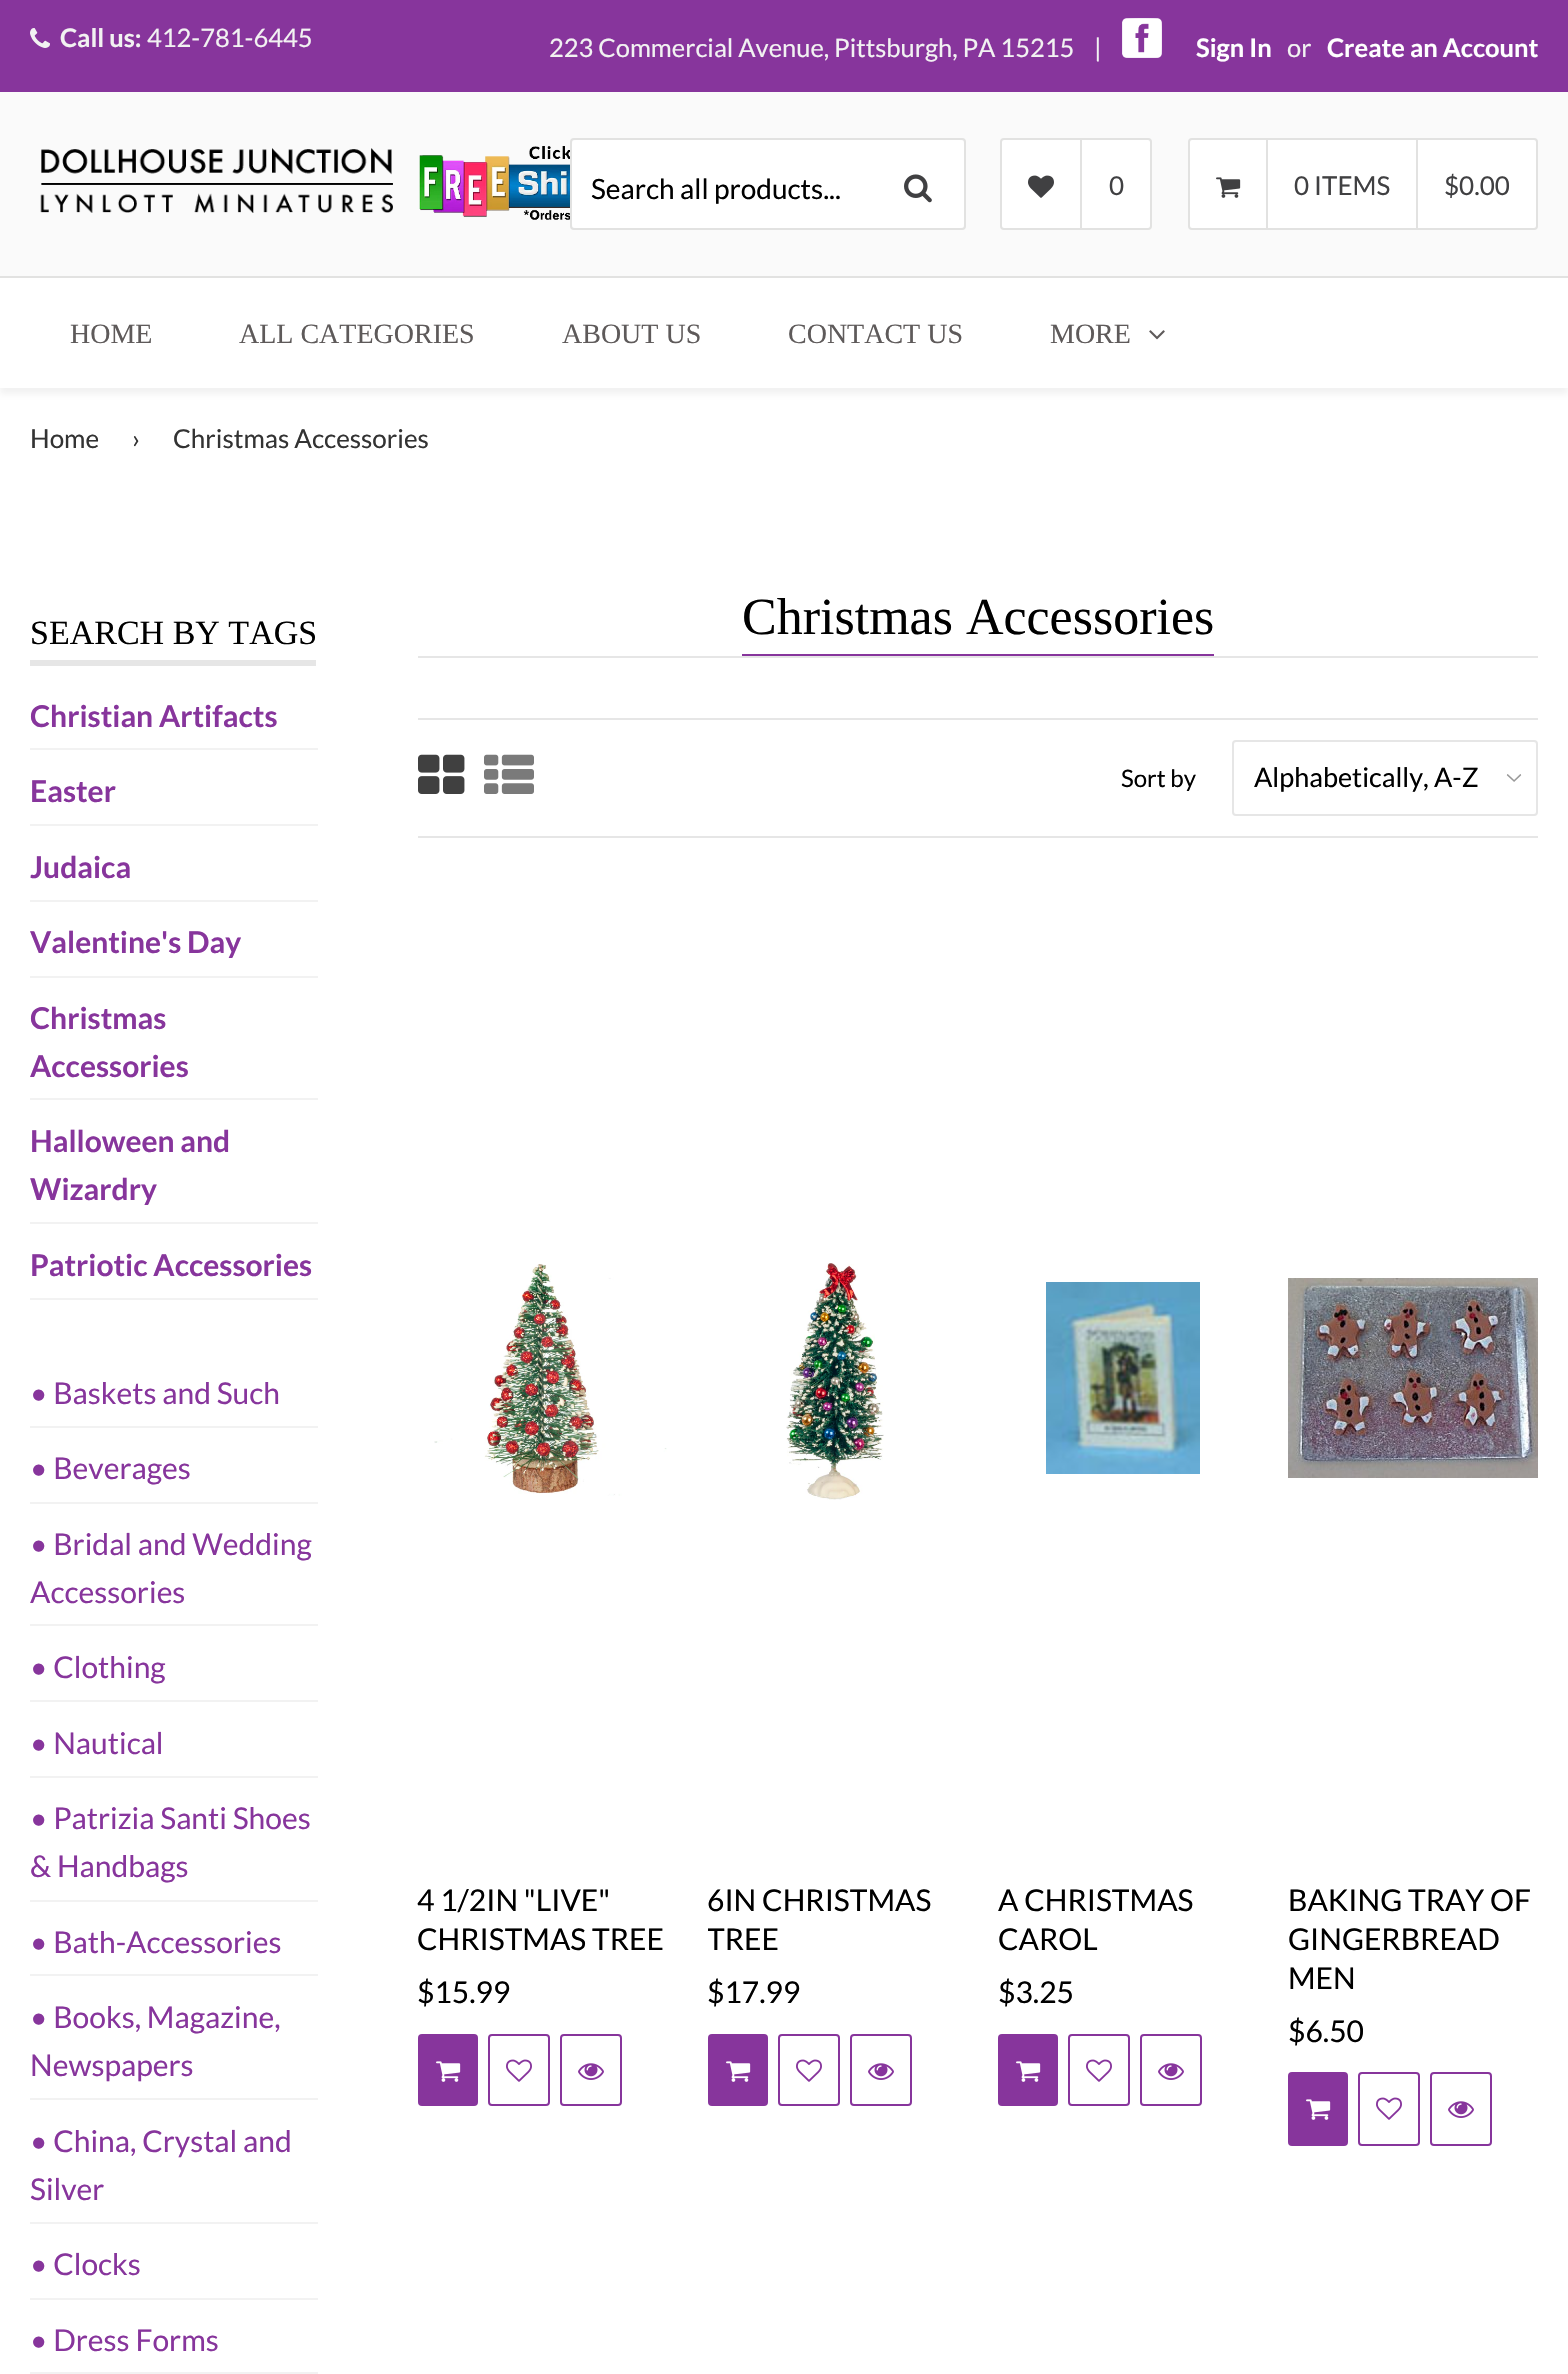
void draw(SkCanvas* canvas) {
	SkPaint paint;
	paint.setAntiAlias(true);
	canvas->clear(0xffffffff);
	paint.setColor(0xff87359c);
	canvas->drawRect(SkRect::MakeXYWH(0, 0, 1568, 92), paint);
	canvas->drawImageRect(SkImages::DeferredFromEncodedData(SkData::MakeFromFileName("img1.png")), SkRect::MakeXYWH(30, 28, 20, 20), SkSamplingOptions());
	SkFont f1(fontMgr->matchFamilyStyle("Lato", SkFontStyle::Bold()), 25.5);
	f1.setSubpixel(true);
	paint.setColor(0xfff2f2f2);
	canvas->drawString("Call us:", 60, 47, f1, paint);
	SkFont f2(fontMgr->matchFamilyStyle("Lato", SkFontStyle::Normal()), 25.5);
	f2.setSubpixel(true);
	canvas->drawString("412-781-6445", 147, 47, f2, paint);
	canvas->drawString("223 Commercial Avenue, Pittsburgh, PA 15215    |", 549, 57, f2, paint);
	canvas->drawImageRect(SkImages::DeferredFromEncodedData(SkData::MakeFromFileName("img2.png")), SkRect::MakeXYWH(1122, 18, 40, 40), SkSamplingOptions());
	paint.setColor(0xffffffff);
	canvas->drawString("Sign In", 1196, 57, f1, paint);
	paint.setColor(0xfff2f2f2);
	canvas->drawString("or", 1287, 57, f2, paint);
	paint.setColor(0xffffffff);
	canvas->drawString("Create an Account", 1327, 57, f1, paint);
	paint.setColor(0xfffafafa);
	canvas->drawRect(SkRect::MakeXYWH(0, 92, 1568, 184), paint);
	canvas->drawImageRect(SkImages::DeferredFromEncodedData(SkData::MakeFromFileName("img3.png")), SkRect::MakeXYWH(40, 148, 353, 65), SkSamplingOptions());
	canvas->drawImageRect(SkImages::DeferredFromEncodedData(SkData::MakeFromFileName("img4.png")), SkRect::MakeXYWH(419, 146, 151, 74), SkSamplingOptions());
	paint.setStroke(true);
	paint.setStrokeWidth(2);
	paint.setColor(0xffe2e2e1);
	canvas->drawRoundRect(SkRect::MakeXYWH(571, 139, 394, 90), 3, 3, paint);
	paint.setStroke(false);
	paint.setColor(0xffffffff);
	canvas->drawRoundRect(SkRect::MakeXYWH(572, 140, 392, 88), 4, 4, paint);
	SkFont f3(fontMgr->matchFamilyStyle("Lato", SkFontStyle::Normal()), 28);
	f3.setSubpixel(true);
	paint.setColor(0xff000000);
	canvas->drawString("Search all products...", 591, 199, f3, paint);
	canvas->drawImageRect(SkImages::DeferredFromEncodedData(SkData::MakeFromFileName("img5.png")), SkRect::MakeXYWH(904, 174, 28, 29), SkSamplingOptions());
	paint.setColor(0xffffffff);
	canvas->drawRoundRect(SkRect::MakeXYWH(1001, 139, 150, 90), 3, 3, paint);
	paint.setStroke(true);
	paint.setColor(0xffe2e2e1);
	canvas->drawRoundRect(SkRect::MakeXYWH(1001, 139, 150, 90), 3, 3, paint);
	canvas->drawImageRect(SkImages::DeferredFromEncodedData(SkData::MakeFromFileName("img6.png")), SkRect::MakeXYWH(1028, 175, 26, 23), SkSamplingOptions());
	paint.setStroke(false);
	canvas->drawRect(SkRect::MakeXYWH(1080, 140, 2, 88), paint);
	SkFont f4(fontMgr->matchFamilyStyle("Lato", SkFontStyle::Normal()), 26);
	f4.setSubpixel(true);
	paint.setColor(0xff404042);
	canvas->drawString("0", 1109, 195, f4, paint);
	paint.setColor(0xffffffff);
	canvas->drawRoundRect(SkRect::MakeXYWH(1189, 139, 348, 90), 3, 3, paint);
	paint.setStroke(true);
	paint.setColor(0xffe2e2e1);
	canvas->drawRoundRect(SkRect::MakeXYWH(1189, 139, 348, 90), 3, 3, paint);
	canvas->drawImageRect(SkImages::DeferredFromEncodedData(SkData::MakeFromFileName("img7.png")), SkRect::MakeXYWH(1216, 177, 25, 21), SkSamplingOptions());
	paint.setStroke(false);
	canvas->drawRect(SkRect::MakeXYWH(1266, 140, 2, 88), paint);
	paint.setColor(0xff404042);
	canvas->drawString("0 ITEMS", 1294, 195, f4, paint);
	paint.setColor(0xffe2e2e1);
	canvas->drawRect(SkRect::MakeXYWH(1416, 140, 2, 88), paint);
	paint.setColor(0xff404042);
	canvas->drawString("$0.00", 1444, 195, f4, paint);
	canvas->save();
	canvas->clipRect(SkRect::MakeXYWH(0, 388, 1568, 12));
	paint.setColor(0xfff2f2f2);
	paint.setMaskFilter(SkMaskFilter::MakeBlur(kNormal_SkBlurStyle, 3));
	canvas->drawRect(SkRect::MakeXYWH(0, 282, 1568, 112), paint);
	paint.setMaskFilter(nullptr);
	canvas->restore();
	paint.setColor(0xffe2e2e1);
	canvas->drawRect(SkRect::MakeXYWH(0, 276, 1568, 2), paint);
	SkFont f5(fontMgr->matchFamilyStyle("Liberation Serif", SkFontStyle::Normal()), 28);
	f5.setSubpixel(true);
	paint.setColor(0xff5e5a5a);
	canvas->drawString("HOME", 70, 343, f5, paint);
	canvas->drawString("ALL CATEGORIES", 239, 343, f5, paint);
	canvas->drawString("ABOUT US", 562, 343, f5, paint);
	canvas->drawString("CONTACT US", 788, 343, f5, paint);
	canvas->drawString("MORE", 1050, 343, f5, paint);
	canvas->drawImageRect(SkImages::DeferredFromEncodedData(SkData::MakeFromFileName("img8.png")), SkRect::MakeXYWH(1149, 330, 16, 10), SkSamplingOptions());
	paint.setColor(0xff333333);
	canvas->drawString("Home", 30, 448, f4, paint);
	canvas->drawString("›", 132, 448, f4, paint);
	canvas->drawString("Christmas Accessories", 173, 448, f4, paint);
	paint.setColor(0xffe6e6e6);
	canvas->drawRect(SkRect::MakeXYWH(30, 660, 286, 6), paint);
	SkFont f6(fontMgr->matchFamilyStyle("Liberation Serif", SkFontStyle::Normal()), 34);
	f6.setSubpixel(true);
	paint.setColor(0xff000000);
	canvas->drawString("SEARCH BY TAGS", 30, 644, f6, paint);
	paint.setColor(0xfff2f2f2);
	canvas->drawRect(SkRect::MakeXYWH(30, 748, 288, 2), paint);
	SkFont f7(fontMgr->matchFamilyStyle("Lato", SkFontStyle::Bold()), 30);
	f7.setSubpixel(true);
	paint.setColor(0xff87359c);
	canvas->drawString("Christian Artifacts", 30, 727, f7, paint);
	paint.setColor(0xfff2f2f2);
	canvas->drawRect(SkRect::MakeXYWH(30, 824, 288, 2), paint);
	paint.setColor(0xff87359c);
	canvas->drawString("Easter", 30, 802, f7, paint);
	paint.setColor(0xfff2f2f2);
	canvas->drawRect(SkRect::MakeXYWH(30, 900, 288, 2), paint);
	paint.setColor(0xff87359c);
	canvas->drawString("Judaica", 30, 878, f7, paint);
	paint.setColor(0xfff2f2f2);
	canvas->drawRect(SkRect::MakeXYWH(30, 976, 288, 2), paint);
	paint.setColor(0xff87359c);
	canvas->drawString("Valentine's Day", 30, 953, f7, paint);
	paint.setColor(0xfff2f2f2);
	canvas->drawRect(SkRect::MakeXYWH(30, 1098, 288, 2), paint);
	paint.setColor(0xff87359c);
	canvas->drawString("Christmas", 30, 1029, f7, paint);
	canvas->drawString("Accessories", 30, 1077, f7, paint);
	paint.setColor(0xfff2f2f2);
	canvas->drawRect(SkRect::MakeXYWH(30, 1222, 288, 2), paint);
	paint.setColor(0xff87359c);
	canvas->drawString("Halloween and", 30, 1152, f7, paint);
	canvas->drawString("Wizardry", 30, 1200, f7, paint);
	paint.setColor(0xfff2f2f2);
	canvas->drawRect(SkRect::MakeXYWH(30, 1298, 288, 2), paint);
	paint.setColor(0xff87359c);
	canvas->drawString("Patriotic Accessories", 30, 1276, f7, paint);
	paint.setColor(0xfff2f2f2);
	canvas->drawRect(SkRect::MakeXYWH(30, 1426, 288, 2), paint);
	SkFont f8(fontMgr->matchFamilyStyle("Lato", SkFontStyle::Normal()), 30);
	f8.setSubpixel(true);
	paint.setColor(0xff87359c);
	canvas->drawString("• Baskets and Such", 30, 1404, f8, paint);
	paint.setColor(0xfff2f2f2);
	canvas->drawRect(SkRect::MakeXYWH(30, 1502, 288, 2), paint);
	paint.setColor(0xff87359c);
	canvas->drawString("• Beverages", 30, 1479, f8, paint);
	paint.setColor(0xfff2f2f2);
	canvas->drawRect(SkRect::MakeXYWH(30, 1624, 288, 2), paint);
	paint.setColor(0xff87359c);
	canvas->drawString("• Bridal and Wedding", 30, 1555, f8, paint);
	canvas->drawString("Accessories", 30, 1603, f8, paint);
	paint.setColor(0xfff2f2f2);
	canvas->drawRect(SkRect::MakeXYWH(30, 1700, 288, 2), paint);
	paint.setColor(0xff87359c);
	canvas->drawString("• Clothing", 30, 1678, f8, paint);
	paint.setColor(0xfff2f2f2);
	canvas->drawRect(SkRect::MakeXYWH(30, 1776, 288, 2), paint);
	paint.setColor(0xff87359c);
	canvas->drawString("• Nautical", 30, 1754, f8, paint);
	paint.setColor(0xfff2f2f2);
	canvas->drawRect(SkRect::MakeXYWH(30, 1900, 288, 2), paint);
	paint.setColor(0xff87359c);
	canvas->drawString("• Patrizia Santi Shoes", 30, 1829, f8, paint);
	canvas->drawString("& Handbags", 30, 1877, f8, paint);
	paint.setColor(0xfff2f2f2);
	canvas->drawRect(SkRect::MakeXYWH(30, 1974, 288, 2), paint);
	paint.setColor(0xff87359c);
	canvas->drawString("• Bath-Accessories", 30, 1953, f8, paint);
	paint.setColor(0xfff2f2f2);
	canvas->drawRect(SkRect::MakeXYWH(30, 2098, 288, 2), paint);
	paint.setColor(0xff87359c);
	canvas->drawString("• Books, Magazine,", 30, 2028, f8, paint);
	canvas->drawString("Newspapers", 30, 2076, f8, paint);
	paint.setColor(0xfff2f2f2);
	canvas->drawRect(SkRect::MakeXYWH(30, 2222, 288, 2), paint);
	paint.setColor(0xff87359c);
	canvas->drawString("• China, Crystal and", 30, 2152, f8, paint);
	canvas->drawString("Silver", 30, 2200, f8, paint);
	paint.setColor(0xfff2f2f2);
	canvas->drawRect(SkRect::MakeXYWH(30, 2298, 288, 2), paint);
	paint.setColor(0xff87359c);
	canvas->drawString("• Clocks", 30, 2275, f8, paint);
	paint.setColor(0xfff2f2f2);
	canvas->drawRect(SkRect::MakeXYWH(30, 2372, 288, 2), paint);
	paint.setColor(0xff87359c);
	canvas->drawString("• Dress Forms", 30, 2351, f8, paint);
	paint.setColor(0xffe6e6e6);
	canvas->drawRect(SkRect::MakeXYWH(418, 656, 1120, 2), paint);
	paint.setColor(0xff87359c);
	canvas->drawRect(SkRect::MakeXYWH(742, 654, 472, 2), paint);
	SkFont f9(fontMgr->matchFamilyStyle("Liberation Serif", SkFontStyle::Normal()), 52);
	f9.setSubpixel(true);
	paint.setColor(0xff000000);
	canvas->drawString("Christmas Accessories", 742, 634, f9, paint);
	paint.setColor(0xffe6e6e6);
	canvas->drawRect(SkRect::MakeXYWH(418, 718, 1120, 2), paint);
	canvas->drawRect(SkRect::MakeXYWH(418, 836, 1120, 2), paint);
	canvas->drawImageRect(SkImages::DeferredFromEncodedData(SkData::MakeFromFileName("img9.png")), SkRect::MakeXYWH(418, 754, 47, 40), SkSamplingOptions());
	canvas->drawImageRect(SkImages::DeferredFromEncodedData(SkData::MakeFromFileName("img10.png")), SkRect::MakeXYWH(484, 754, 50, 40), SkSamplingOptions());
	SkFont f10(fontMgr->matchFamilyStyle("Lato", SkFontStyle::Normal()), 24);
	f10.setSubpixel(true);
	paint.setColor(0xff000000);
	canvas->drawString("Sort by", 1121, 787, f10, paint);
	canvas->drawImageRect(SkImages::DeferredFromEncodedData(SkData::MakeFromFileName("img11.png")), SkRect::MakeXYWH(1506, 774, 16, 8), SkSamplingOptions());
	paint.setStroke(true);
	paint.setColor(0xffe6e6e6);
	canvas->drawRoundRect(SkRect::MakeXYWH(1233, 741, 304, 74), 3, 3, paint);
	SkFont f11(fontMgr->matchFamilyStyle("Lato", SkFontStyle::Normal()), 27);
	f11.setSubpixel(true);
	paint.setStroke(false);
	paint.setColor(0xff000000);
	canvas->drawString("Alphabetically, A-Z", 1254, 787, f11, paint);
	canvas->drawImageRect(SkImages::DeferredFromEncodedData(SkData::MakeFromFileName("img12.png")), SkRect::MakeXYWH(434, 1264, 233, 232), SkSamplingOptions());
	canvas->drawString("4 1/2IN \"LIVE\"", 417, 1911, f8, paint);
	canvas->drawString("CHRISTMAS TREE", 417, 1950, f8, paint);
	canvas->drawString("$15.99", 417, 2003, f8, paint);
	paint.setColor(0xff87359c);
	canvas->drawRoundRect(SkRect::MakeXYWH(418, 2034, 60, 72), 4, 4, paint);
	canvas->drawImageRect(SkImages::DeferredFromEncodedData(SkData::MakeFromFileName("img13.png")), SkRect::MakeXYWH(436, 2061, 25, 21), SkSamplingOptions());
	paint.setStroke(true);
	canvas->drawRoundRect(SkRect::MakeXYWH(489, 2035, 60, 70), 3, 3, paint);
	canvas->drawImageRect(SkImages::DeferredFromEncodedData(SkData::MakeFromFileName("img14.png")), SkRect::MakeXYWH(506, 2059, 26, 23), SkSamplingOptions());
	canvas->drawRoundRect(SkRect::MakeXYWH(561, 2035, 60, 70), 3, 3, paint);
	canvas->drawImageRect(SkImages::DeferredFromEncodedData(SkData::MakeFromFileName("img15.png")), SkRect::MakeXYWH(578, 2063, 26, 17), SkSamplingOptions());
	canvas->drawImageRect(SkImages::DeferredFromEncodedData(SkData::MakeFromFileName("img16.png")), SkRect::MakeXYWH(786, 1263, 98, 237), SkSamplingOptions());
	paint.setStroke(false);
	paint.setColor(0xff000000);
	canvas->drawString("6IN CHRISTMAS", 707, 1911, f8, paint);
	canvas->save();
	canvas->clipRect(SkRect::MakeXYWH(708, 1882, 250, 78));
	canvas->drawString("TREE", 707, 1950, f8, paint);
	canvas->restore();
	canvas->drawString("$17.99", 707, 2003, f8, paint);
	paint.setColor(0xff87359c);
	canvas->drawRoundRect(SkRect::MakeXYWH(708, 2034, 60, 72), 4, 4, paint);
	canvas->drawImageRect(SkImages::DeferredFromEncodedData(SkData::MakeFromFileName("img13.png")), SkRect::MakeXYWH(726, 2061, 25, 21), SkSamplingOptions());
	paint.setStroke(true);
	canvas->drawRoundRect(SkRect::MakeXYWH(779, 2035, 60, 70), 3, 3, paint);
	canvas->drawImageRect(SkImages::DeferredFromEncodedData(SkData::MakeFromFileName("img14.png")), SkRect::MakeXYWH(796, 2059, 26, 23), SkSamplingOptions());
	canvas->drawRoundRect(SkRect::MakeXYWH(851, 2035, 60, 70), 3, 3, paint);
	canvas->drawImageRect(SkImages::DeferredFromEncodedData(SkData::MakeFromFileName("img15.png")), SkRect::MakeXYWH(868, 2063, 26, 17), SkSamplingOptions());
	canvas->drawImageRect(SkImages::DeferredFromEncodedData(SkData::MakeFromFileName("img17.png")), SkRect::MakeXYWH(1046, 1282, 154, 192), SkSamplingOptions());
	paint.setStroke(false);
	paint.setColor(0xff000000);
	canvas->drawString("A CHRISTMAS", 998, 1911, f8, paint);
	canvas->drawString("CAROL", 998, 1950, f8, paint);
	canvas->drawString("$3.25", 998, 2003, f8, paint);
	paint.setColor(0xff87359c);
	canvas->drawRoundRect(SkRect::MakeXYWH(998, 2034, 60, 72), 4, 4, paint);
	canvas->drawImageRect(SkImages::DeferredFromEncodedData(SkData::MakeFromFileName("img13.png")), SkRect::MakeXYWH(1016, 2061, 25, 21), SkSamplingOptions());
	paint.setStroke(true);
	canvas->drawRoundRect(SkRect::MakeXYWH(1069, 2035, 60, 70), 3, 3, paint);
	canvas->drawImageRect(SkImages::DeferredFromEncodedData(SkData::MakeFromFileName("img14.png")), SkRect::MakeXYWH(1086, 2059, 26, 23), SkSamplingOptions());
	canvas->drawRoundRect(SkRect::MakeXYWH(1141, 2035, 60, 70), 3, 3, paint);
	canvas->drawImageRect(SkImages::DeferredFromEncodedData(SkData::MakeFromFileName("img15.png")), SkRect::MakeXYWH(1158, 2063, 26, 17), SkSamplingOptions());
	canvas->drawImageRect(SkImages::DeferredFromEncodedData(SkData::MakeFromFileName("img18.png")), SkRect::MakeXYWH(1288, 1278, 250, 200), SkSamplingOptions());
	paint.setStroke(false);
	paint.setColor(0xff000000);
	canvas->drawString("BAKING TRAY OF", 1288, 1911, f8, paint);
	canvas->drawString("GINGERBREAD", 1288, 1950, f8, paint);
	canvas->drawString("MEN", 1288, 1989, f8, paint);
	canvas->drawString("$6.50", 1288, 2042, f8, paint);
	paint.setColor(0xff87359c);
	canvas->drawRoundRect(SkRect::MakeXYWH(1288, 2072, 60, 74), 4, 4, paint);
	canvas->drawImageRect(SkImages::DeferredFromEncodedData(SkData::MakeFromFileName("img13.png")), SkRect::MakeXYWH(1306, 2099, 25, 21), SkSamplingOptions());
	paint.setStroke(true);
	canvas->drawRoundRect(SkRect::MakeXYWH(1359, 2073, 60, 72), 3, 3, paint);
	canvas->drawImageRect(SkImages::DeferredFromEncodedData(SkData::MakeFromFileName("img14.png")), SkRect::MakeXYWH(1376, 2097, 26, 23), SkSamplingOptions());
	canvas->drawRoundRect(SkRect::MakeXYWH(1431, 2073, 60, 72), 3, 3, paint);
	canvas->drawImageRect(SkImages::DeferredFromEncodedData(SkData::MakeFromFileName("img15.png")), SkRect::MakeXYWH(1448, 2101, 26, 17), SkSamplingOptions());
}
